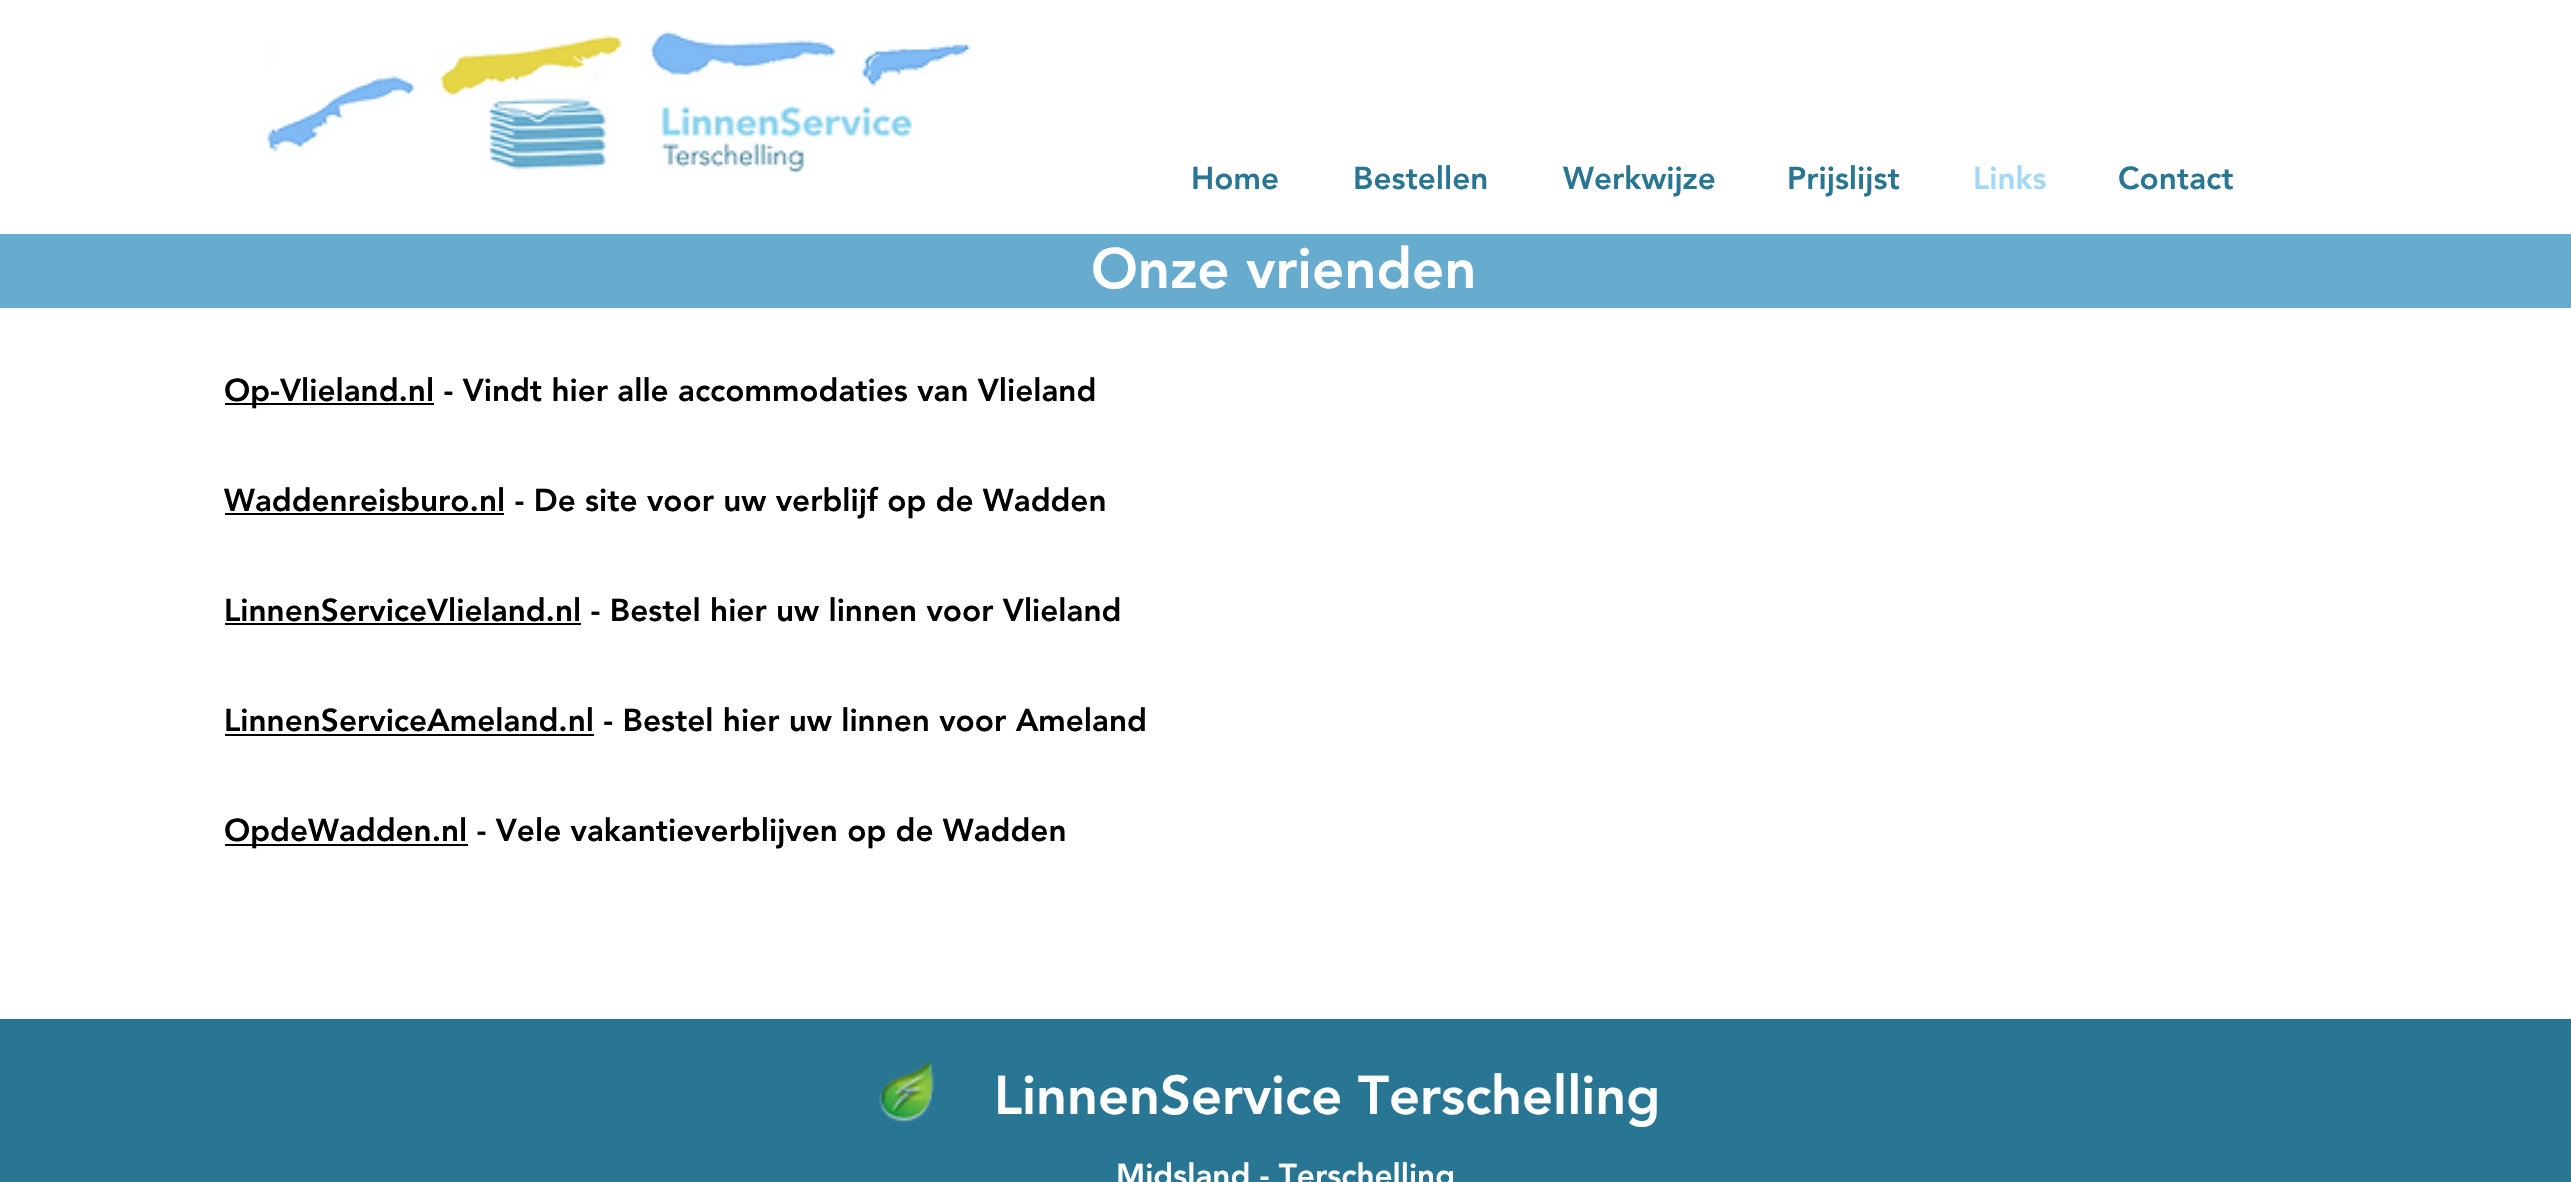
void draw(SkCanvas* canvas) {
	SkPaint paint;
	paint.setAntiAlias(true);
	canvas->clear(0xffffffff);
	canvas->drawImageRect(SkImages::DeferredFromEncodedData(SkData::MakeFromFileName("img1.png")), SkRect::MakeXYWH(264, 31, 707, 143), SkSamplingOptions());
	SkFont f1(fontMgr->matchFamilyStyle("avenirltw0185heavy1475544", SkFontStyle(900, SkFontStyle::kNormal_Width, SkFontStyle::kUpright_Slant)), 31.5);
	f1.setSubpixel(true);
	paint.setColor(0xff287693);
	canvas->drawString("Home", 1191, 189, f1, paint);
	canvas->drawString("Bestellen", 1353, 189, f1, paint);
	canvas->drawString("Werkwijze", 1563, 189, f1, paint);
	canvas->drawString("Prijslijst", 1787, 189, f1, paint);
	paint.setColor(0xffa3d9f6);
	canvas->drawString("Links", 1973, 189, f1, paint);
	paint.setColor(0xff287693);
	canvas->drawString("Contact", 2118, 189, f1, paint);
	paint.setColor(0xff67acce);
	canvas->drawRect(SkRect::MakeXYWH(0, 234, 2571, 74), paint);
	SkFont f2(fontMgr->matchFamilyStyle("avenirltw0185heavy1475544", SkFontStyle(900, SkFontStyle::kNormal_Width, SkFontStyle::kUpright_Slant)), 56.25);
	f2.setSubpixel(true);
	paint.setColor(0xffffffff);
	canvas->drawString("Onze vrienden", 1091, 288, f2, paint);
	paint.setColor(0xff000000);
	canvas->drawRect(SkRect::MakeXYWH(225, 403, 209, 2), paint);
	canvas->drawString("Op-Vlieland.nl - Vindt hier alle accommodaties van Vlieland", 224, 401, f1, paint);
	canvas->drawRect(SkRect::MakeXYWH(225, 513, 279, 2), paint);
	canvas->drawString("Waddenreisburo.nl - De site voor uw verblijf op de Wadden", 224, 511, f1, paint);
	canvas->drawString("LinnenServiceVlieland.nl - Bestel hier uw linnen voor Vlieland", 224, 621, f1, paint);
	canvas->drawRect(SkRect::MakeXYWH(225, 623, 356, 2), paint);
	canvas->drawString("LinnenServiceAmeland.nl - Bestel hier uw linnen voor Ameland", 224, 731, f1, paint);
	canvas->drawRect(SkRect::MakeXYWH(225, 734, 369, 2), paint);
	canvas->drawRect(SkRect::MakeXYWH(225, 844, 243, 2), paint);
	canvas->drawString("OpdeWadden.nl - Vele vakantieverblijven op de Wadden", 224, 841, f1, paint);
	paint.setColor(0xff287693);
	canvas->drawRect(SkRect::MakeXYWH(0, 1019, 2571, 163), paint);
	canvas->drawImageRect(SkImages::DeferredFromEncodedData(SkData::MakeFromFileName("img2.png")), SkRect::MakeXYWH(879, 1061, 56, 62), SkSamplingOptions());
	SkFont f3(fontMgr->matchFamilyStyle("avenirltw0185heavy1475544", SkFontStyle(900, SkFontStyle::kNormal_Width, SkFontStyle::kUpright_Slant)), 54);
	f3.setSubpixel(true);
	paint.setColor(0xffffffff);
	canvas->drawString("LinnenService Terschelling", 994, 1114, f3, paint);
	canvas->drawString("Midsland - Terschelling", 1116, 1186, f1, paint);
}
